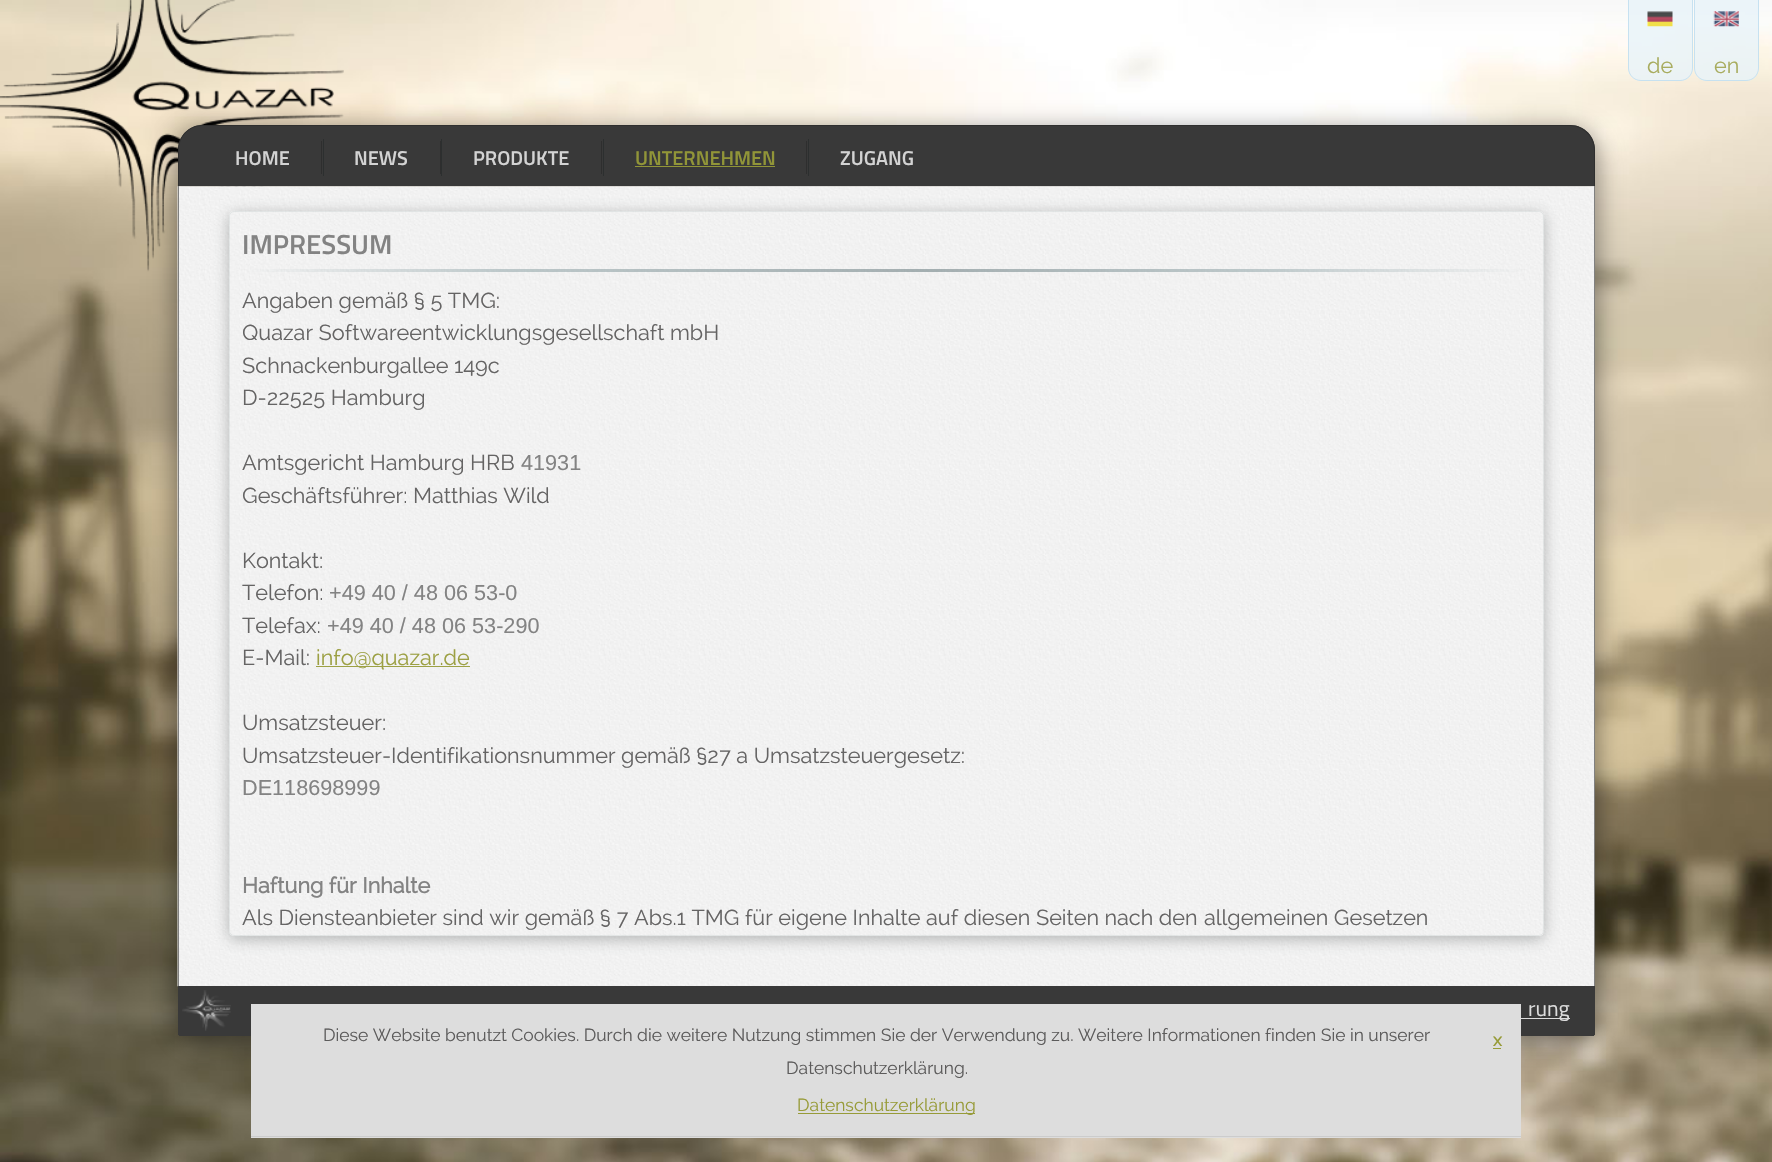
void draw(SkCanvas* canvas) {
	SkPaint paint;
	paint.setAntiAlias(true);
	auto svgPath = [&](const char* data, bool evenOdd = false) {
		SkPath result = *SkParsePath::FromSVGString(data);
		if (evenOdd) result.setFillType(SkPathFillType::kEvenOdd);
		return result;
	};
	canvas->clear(0xffffffff);
	canvas->drawImageRect(SkImages::DeferredFromEncodedData(SkData::MakeFromFileName("img1.png")), SkRect::MakeXYWH(0, 0, 1772, 1162), SkSamplingOptions());
	paint.setColor(0xcce7f2f9);
	canvas->drawPath(svgPath("M1628-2H1693V68C1693 75 1687 81 1680 81H1641C1634 81 1628 75 1628 68Z"), paint);
	canvas->drawImageRect(SkImages::DeferredFromEncodedData(SkData::MakeFromFileName("img2.png")), SkRect::MakeXYWH(1647, 11, 26, 16), SkSamplingOptions());
	paint.setStroke(true);
	paint.setStrokeWidth(1);
	paint.setColor(0xccbddcef);
	canvas->drawPath(svgPath("M1628.5-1.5H1692.5V68C1692.5 75 1687 80.5 1680 80.5H1641C1634 80.5 1628.5 75 1628.5 68Z"), paint);
	SkFont f1(fontMgr->matchFamilyStyle("Raleway", SkFontStyle::Normal()), 21.65);
	f1.setSubpixel(true);
	paint.setStroke(false);
	paint.setColor(0xffa8ac5e);
	canvas->drawString("de", 1647, 73, f1, paint);
	paint.setColor(0xcce7f2f9);
	canvas->drawPath(svgPath("M1694-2H1759V68C1759 75 1753 81 1746 81H1707C1700 81 1694 75 1694 68Z"), paint);
	canvas->drawImageRect(SkImages::DeferredFromEncodedData(SkData::MakeFromFileName("img3.png")), SkRect::MakeXYWH(1713, 11, 26, 16), SkSamplingOptions());
	paint.setStroke(true);
	paint.setColor(0xccbddcef);
	canvas->drawPath(svgPath("M1694.5-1.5H1758.5V68C1758.5 75 1753 80.5 1746 80.5H1707C1700 80.5 1694.5 75 1694.5 68Z"), paint);
	paint.setStroke(false);
	paint.setColor(0xffa8ac5e);
	canvas->drawString("en", 1714, 73, f1, paint);
	paint.setColor(0x66000000);
	paint.setMaskFilter(SkMaskFilter::MakeBlur(kNormal_SkBlurStyle, 12.5));
	canvas->drawRoundRect(SkRect::MakeXYWH(175, 129, 1423, 916), 28, 28, paint);
	paint.setMaskFilter(nullptr);
	paint.setColor(0xff393939);
	canvas->drawPath(svgPath("M203 125H1570C1584 125 1595 136 1595 150V186H178V150C178 136 189 125 203 125Z"), paint);
	paint.setColor(0xff2f2f2f);
	canvas->drawPath(svgPath("M202 125H1570C1584 125 1595 136 1595 150V186H178V150C178 136 189 125 202 125ZM202 126H1570C1583 126 1594 137 1594 150V186H179V150C179 137 189 126 202 126Z", true), paint);
	paint.setColor(0xff2c2f2f);
	canvas->drawRect(SkRect::MakeXYWH(323, 139, 1, 37), paint);
	paint.setColor(0xff2e2e2e);
	canvas->drawRect(SkRect::MakeXYWH(321, 141, 1, 33), paint);
	SkFont f2(fontMgr->matchFamilyStyle("Titillium Web", SkFontStyle(600, SkFontStyle::kNormal_Width, SkFontStyle::kUpright_Slant)), 20);
	f2.setSubpixel(true);
	paint.setColor(0xffd3d3d3);
	canvas->drawString("HOME", 235, 165, f2, paint);
	paint.setColor(0xff2c2f2f);
	canvas->drawRect(SkRect::MakeXYWH(441, 139, 1, 37), paint);
	paint.setColor(0xff2e2e2e);
	canvas->drawRect(SkRect::MakeXYWH(440, 141, 1, 33), paint);
	paint.setColor(0xffd3d3d3);
	canvas->drawString("NEWS", 354, 165, f2, paint);
	paint.setColor(0xff2c2f2f);
	canvas->drawRect(SkRect::MakeXYWH(603, 139, 1, 37), paint);
	paint.setColor(0xff2e2e2e);
	canvas->drawRect(SkRect::MakeXYWH(601, 141, 1, 33), paint);
	paint.setColor(0xffd3d3d3);
	canvas->drawString("PRODUKTE", 473, 165, f2, paint);
	paint.setColor(0xff2c2f2f);
	canvas->drawRect(SkRect::MakeXYWH(808, 139, 1, 37), paint);
	paint.setColor(0xff2e2e2e);
	canvas->drawRect(SkRect::MakeXYWH(806, 141, 1, 33), paint);
	paint.setColor(0xff919538);
	canvas->drawString("UNTERNEHMEN", 635, 165, f2, paint);
	canvas->drawRect(SkRect::MakeXYWH(635, 166, 140, 1), paint);
	paint.setColor(0xffd3d3d3);
	canvas->drawString("ZUGANG", 840, 165, f2, paint);
	canvas->drawImageRect(SkImages::DeferredFromEncodedData(SkData::MakeFromFileName("img4.png")), SkRect::MakeXYWH(177, 186, 1417, 801), SkSamplingOptions());
	paint.setColor(0xff808080);
	canvas->drawRect(SkRect::MakeXYWH(1594, 186, 1, 800), paint);
	canvas->drawRect(SkRect::MakeXYWH(178, 186, 1, 800), paint);
	canvas->save();
	canvas->clipPath(svgPath("M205 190H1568V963H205ZM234 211H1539C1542 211 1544 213 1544 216V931C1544 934 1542 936 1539 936H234C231 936 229 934 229 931V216C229 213 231 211 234 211Z", true), true);
	paint.setColor(0x7a696c6d);
	paint.setMaskFilter(SkMaskFilter::MakeBlur(kNormal_SkBlurStyle, 7.5));
	canvas->drawRoundRect(SkRect::MakeXYWH(229, 214, 1315, 725), 5, 5, paint);
	paint.setMaskFilter(nullptr);
	canvas->restore();
	paint.setStroke(true);
	paint.setColor(0x4abbc4c5);
	canvas->drawRoundRect(SkRect::MakeXYWH(229.5, 211.5, 1314, 724), 4.5, 4.5, paint);
	SkFont f3(fontMgr->matchFamilyStyle("Titillium Web", SkFontStyle(600, SkFontStyle::kNormal_Width, SkFontStyle::kUpright_Slant)), 27.5);
	f3.setSubpixel(true);
	paint.setStroke(false);
	paint.setColor(0xff838383);
	canvas->drawString("IMPRESSUM", 242, 254, f3, paint);
	paint.setColor(0xff656464);
	canvas->drawString("Angaben gemäß § 5 TMG:", 242, 308, f1, paint);
	canvas->drawString("Quazar Softwareentwicklungsgesellschaft mbH", 242, 340, f1, paint);
	canvas->drawString("Schnackenburgallee 149c", 242, 373, f1, paint);
	canvas->drawString("D-22525 Hamburg", 242, 405, f1, paint);
	canvas->drawString("Amtsgericht Hamburg HRB", 242, 470, f1, paint);
	SkFont f4(fontMgr->matchFamilyStyle("Liberation Sans", SkFontStyle::Normal()), 21.65);
	f4.setSubpixel(true);
	paint.setColor(0xff838383);
	canvas->drawString("41931", 521, 470, f4, paint);
	paint.setColor(0xff656464);
	canvas->drawString("Geschäftsführer: Matthias Wild", 242, 503, f1, paint);
	canvas->drawString("Kontakt:", 242, 568, f1, paint);
	canvas->drawString("Telefon:", 242, 600, f1, paint);
	paint.setColor(0xff838383);
	canvas->drawString("+49 40 / 48 06 53-0", 329, 600, f4, paint);
	paint.setColor(0xff656464);
	canvas->drawString("Telefax:", 242, 633, f1, paint);
	paint.setColor(0xff838383);
	canvas->drawString("+49 40 / 48 06 53-290", 327, 633, f4, paint);
	paint.setColor(0xff656464);
	canvas->drawString("E-Mail:", 242, 665, f1, paint);
	paint.setColor(0xf0979b38);
	canvas->drawRect(SkRect::MakeXYWH(316, 666, 154, 1), paint);
	paint.setColor(0xff9ca043);
	canvas->drawString("info@quazar.de", 316, 665, f1, paint);
	paint.setColor(0xff656464);
	canvas->drawString("Umsatzsteuer:", 242, 730, f1, paint);
	canvas->drawString("Umsatzsteuer-Identifikationsnummer gemäß §27 a Umsatzsteuergesetz:", 242, 763, f1, paint);
	paint.setColor(0xff838383);
	canvas->drawString("DE118698999", 242, 795, f4, paint);
	SkFont f5(fontMgr->matchFamilyStyle("Raleway", SkFontStyle::Bold()), 21.65);
	f5.setSubpixel(true);
	canvas->drawString("Haftung für Inhalte", 242, 893, f5, paint);
	paint.setColor(0xff656464);
	canvas->drawString("Als Diensteanbieter sind wir gemäß § 7 Abs.1 TMG für eigene Inhalte auf diesen Seiten nach den", 242, 925, f1, paint);
	canvas->drawString("allgemeinen Gesetzen", 1204, 925, f1, paint);
	paint.setColor(0xff393939);
	canvas->drawPath(svgPath("M178 986H1595V1033.5C1595 1035 1594 1036 1592.5 1036H180.5C179 1036 178 1035 178 1033.5Z"), paint);
	canvas->drawRect(SkRect::MakeXYWH(1594, 1033, 1, 2), paint);
	canvas->drawRect(SkRect::MakeXYWH(179, 1035, 1415, 1), paint);
	canvas->drawRect(SkRect::MakeXYWH(178, 1034, 1, 1), paint);
	canvas->drawImageRect(SkImages::DeferredFromEncodedData(SkData::MakeFromFileName("img5.png")), SkRect::MakeXYWH(182, 990, 49, 41), SkSamplingOptions());
	paint.setColor(0xffdcdcdc);
	canvas->drawRect(SkRect::MakeXYWH(1521, 1018, 49, 1), paint);
	SkFont f6(fontMgr->matchFamilyStyle("Titillium Web", SkFontStyle::Normal()), 21.65);
	f6.setSubpixel(true);
	canvas->drawString("rung", 1528, 1016, f6, paint);
	paint.setColor(0xffdddddd);
	canvas->drawRect(SkRect::MakeXYWH(251, 1004, 1270, 134), paint);
	paint.setColor(0xffcccccc);
	canvas->drawRect(SkRect::MakeXYWH(251, 1136, 1270, 1), paint);
	SkFont f7(fontMgr->matchFamilyStyle("Raleway", SkFontStyle::Normal()), 17.5);
	f7.setSubpixel(true);
	paint.setColor(0xff5c5b5b);
	canvas->drawString("Diese Website benutzt Cookies. Durch die weitere Nutzung stimmen Sie der Verwendung zu. Weitere Informationen finden Sie in unserer", 323, 1041, f7, paint);
	SkFont f8(fontMgr->matchFamilyStyle("Raleway", SkFontStyle::Bold()), 17.5);
	f8.setSubpixel(true);
	paint.setColor(0xff979b38);
	canvas->drawString("x", 1493, 1046, f8, paint);
	canvas->drawRect(SkRect::MakeXYWH(1493, 1048, 8, 1), paint);
	paint.setColor(0xff5c5b5b);
	canvas->drawString("Datenschutzerklärung.", 786, 1074, f7, paint);
	paint.setColor(0xff979b38);
	canvas->drawRect(SkRect::MakeXYWH(798, 1113, 177, 1), paint);
	canvas->drawString("Datenschutzerklärung", 797, 1111, f7, paint);
}
